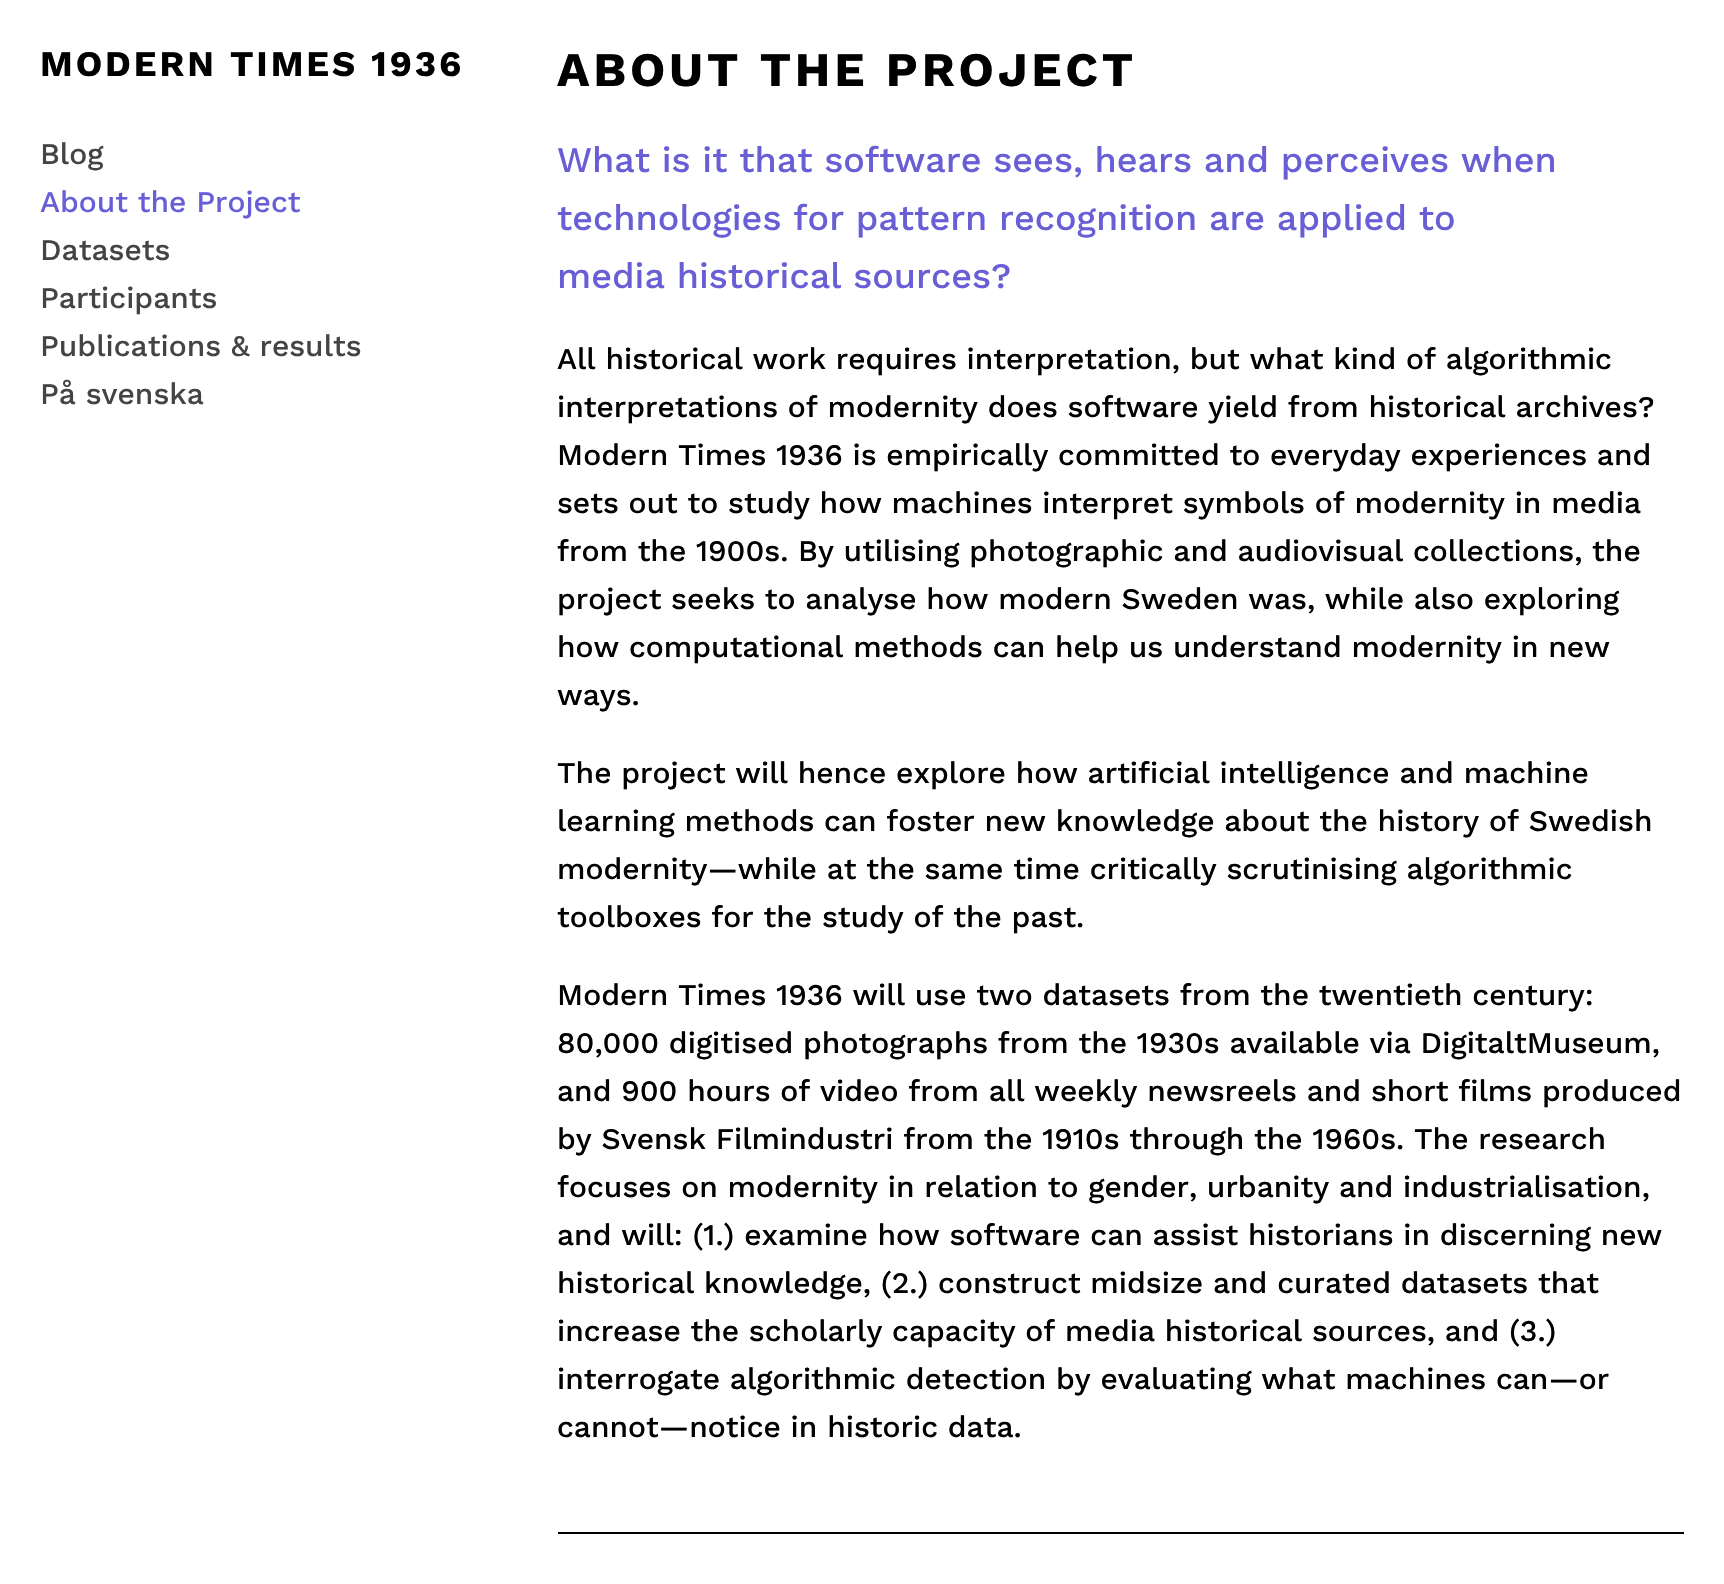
void draw(SkCanvas* canvas) {
	SkPaint paint;
	paint.setAntiAlias(true);
	auto spacedText = [&](const char* s, float x, float y, const SkFont& font, const SkPaint& ink, float letter, float word) {
		std::vector<SkGlyphID> glyphs(font.countText(s, strlen(s), SkTextEncoding::kUTF8));
		std::vector<float> xs(glyphs.size());
		font.textToGlyphs(s, strlen(s), SkTextEncoding::kUTF8, glyphs);
		font.getXPos(glyphs, xs, x);
		float extra = 0;
		for (size_t i = 0; i < glyphs.size(); i++) {
			xs[i] += extra;
			extra += letter + word * (glyphs[i] == font.unicharToGlyph(' '));
		}
		canvas->drawTextBlob(SkTextBlob::MakeFromPosHGlyphs(glyphs, xs, y, font), 0, 0, ink);
	};
	canvas->clear(0xffffffff);
	SkFont f1(fontMgr->matchFamilyStyle("Work Sans", SkFontStyle::Bold()), 36);
	f1.setSubpixel(true);
	paint.setColor(0xff000000);
	spacedText("MODERN TIMES 1936", 40, 76, f1, paint, 2.9, 0);
	SkFont f2(fontMgr->matchFamilyStyle("Work Sans", SkFontStyle(500, SkFontStyle::kNormal_Width, SkFontStyle::kUpright_Slant)), 30);
	f2.setSubpixel(true);
	paint.setColor(0xff444444);
	canvas->drawString("Blog", 40, 164, f2, paint);
	paint.setColor(0xff685ed6);
	canvas->drawString("About the Project", 40, 212, f2, paint);
	paint.setColor(0xff444444);
	canvas->drawString("Datasets", 40, 260, f2, paint);
	canvas->drawString("Participants", 40, 308, f2, paint);
	canvas->drawString("Publications & results", 40, 356, f2, paint);
	canvas->drawString("På svenska", 40, 404, f2, paint);
	SkFont f3(fontMgr->matchFamilyStyle("Work Sans", SkFontStyle::Bold()), 48);
	f3.setSubpixel(true);
	paint.setColor(0xff000000);
	spacedText("ABOUT THE PROJECT", 557, 86, f3, paint, 3.8, 0);
	SkFont f4(fontMgr->matchFamilyStyle("Work Sans", SkFontStyle(500, SkFontStyle::kNormal_Width, SkFontStyle::kUpright_Slant)), 36);
	f4.setSubpixel(true);
	paint.setColor(0xff685ed6);
	canvas->drawString("What is it that software sees, hears and perceives when", 557, 172, f4, paint);
	canvas->drawString("technologies for pattern recognition are applied to", 557, 230, f4, paint);
	canvas->drawString("media historical sources?", 557, 288, f4, paint);
	paint.setColor(0xff000000);
	canvas->drawString("All historical work requires interpretation, but what kind of algorithmic", 557, 369, f2, paint);
	canvas->drawString("interpretations of modernity does software yield from historical archives?", 557, 417, f2, paint);
	canvas->drawString("Modern Times 1936 is empirically committed to everyday experiences and", 557, 465, f2, paint);
	canvas->drawString("sets out to study how machines interpret symbols of modernity in media", 557, 513, f2, paint);
	canvas->drawString("from the 1900s. By utilising photographic and audiovisual collections, the", 557, 561, f2, paint);
	canvas->drawString("project seeks to analyse how modern Sweden was, while also exploring", 557, 609, f2, paint);
	canvas->drawString("how computational methods can help us understand modernity in new", 557, 657, f2, paint);
	canvas->drawString("ways.", 557, 705, f2, paint);
	canvas->drawString("The project will hence explore how artificial intelligence and machine", 557, 783, f2, paint);
	canvas->drawString("learning methods can foster new knowledge about the history of Swedish", 557, 831, f2, paint);
	canvas->drawString("modernity—while at the same time critically scrutinising algorithmic", 557, 879, f2, paint);
	canvas->drawString("toolboxes for the study of the past.", 557, 927, f2, paint);
	canvas->drawString("Modern Times 1936 will use two datasets from the twentieth century:", 557, 1005, f2, paint);
	canvas->drawString("80,000 digitised photographs from the 1930s available via DigitaltMuseum,", 557, 1053, f2, paint);
	canvas->drawString("and 900 hours of video from all weekly newsreels and short films produced", 557, 1101, f2, paint);
	canvas->drawString("by Svensk Filmindustri from the 1910s through the 1960s. The research", 557, 1149, f2, paint);
	canvas->drawString("focuses on modernity in relation to gender, urbanity and industrialisation,", 557, 1197, f2, paint);
	canvas->drawString("and will: (1.) examine how software can assist historians in discerning new", 557, 1245, f2, paint);
	canvas->drawString("historical knowledge, (2.) construct midsize and curated datasets that", 557, 1293, f2, paint);
	canvas->drawString("increase the scholarly capacity of media historical sources, and (3.)", 557, 1341, f2, paint);
	canvas->drawString("interrogate algorithmic detection by evaluating what machines can—or", 557, 1389, f2, paint);
	canvas->drawString("cannot—notice in historic data.", 557, 1437, f2, paint);
	canvas->drawRect(SkRect::MakeXYWH(558, 1532, 1126, 2), paint);
}
